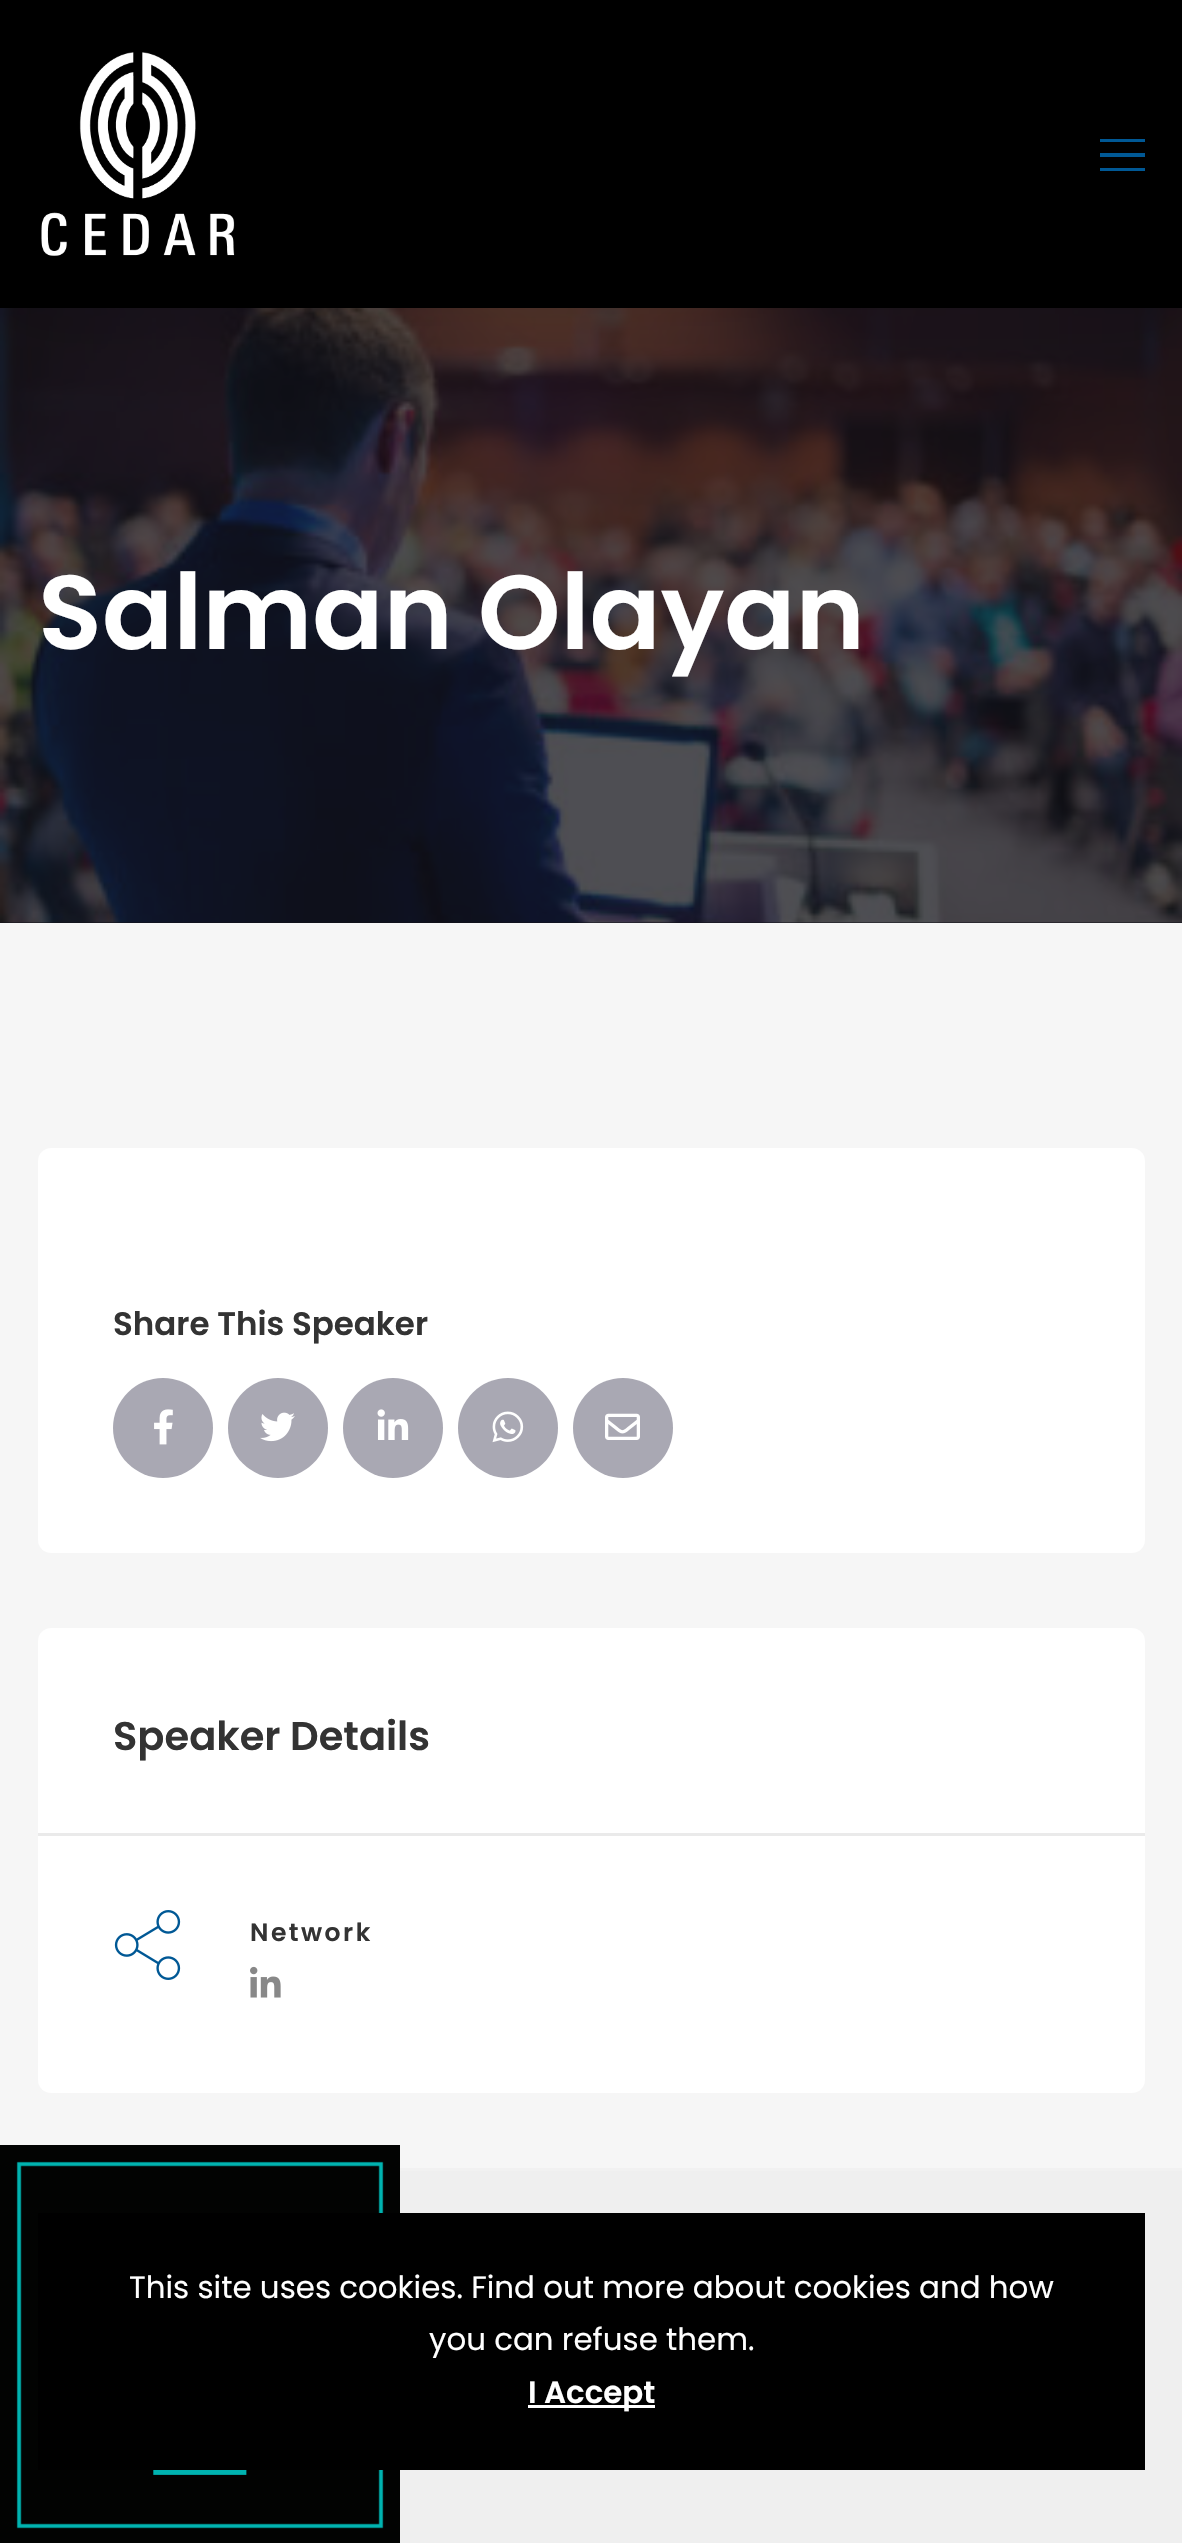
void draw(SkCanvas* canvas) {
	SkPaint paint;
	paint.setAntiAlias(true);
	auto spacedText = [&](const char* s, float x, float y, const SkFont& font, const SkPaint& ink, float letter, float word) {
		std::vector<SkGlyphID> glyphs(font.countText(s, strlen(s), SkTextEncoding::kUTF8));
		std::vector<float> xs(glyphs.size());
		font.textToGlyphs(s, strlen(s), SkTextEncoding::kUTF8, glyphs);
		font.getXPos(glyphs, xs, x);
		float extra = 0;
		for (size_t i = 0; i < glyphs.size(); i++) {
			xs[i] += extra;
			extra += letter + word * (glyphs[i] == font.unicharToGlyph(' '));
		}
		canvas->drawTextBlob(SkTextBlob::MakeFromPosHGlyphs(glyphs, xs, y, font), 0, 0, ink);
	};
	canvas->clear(0xfff6f6f6);
	paint.setColor(0xff121219);
	canvas->drawRect(SkRect::MakeXYWH(0, 308, 1182, 615), paint);
	canvas->drawImageRect(SkImages::DeferredFromEncodedData(SkData::MakeFromFileName("img2.png")), SkRect::MakeXYWH(0, 308, 1182, 615), SkSamplingOptions());
	paint.setColor(0x1a000000);
	paint.setMaskFilter(SkMaskFilter::MakeBlur(kNormal_SkBlurStyle, 37.5));
	canvas->drawRect(SkRect::MakeXYWH(0, 3, 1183, 307), paint);
	paint.setMaskFilter(nullptr);
	paint.setColor(0xff000000);
	canvas->drawRect(SkRect::MakeXYWH(0, 0, 1182, 308), paint);
	canvas->drawImageRect(SkImages::DeferredFromEncodedData(SkData::MakeFromFileName("img1.png")), SkRect::MakeXYWH(41, 52, 194, 204), SkSamplingOptions());
	paint.setColor(0xff005895);
	canvas->drawRect(SkRect::MakeXYWH(1100, 139, 45, 3), paint);
	canvas->drawRect(SkRect::MakeXYWH(1100, 153, 45, 4), paint);
	canvas->drawRect(SkRect::MakeXYWH(1100, 168, 45, 3), paint);
	SkFont f1(fontMgr->matchFamilyStyle("Poppins", SkFontStyle(600, SkFontStyle::kNormal_Width, SkFontStyle::kUpright_Slant)), 105);
	f1.setSubpixel(true);
	paint.setColor(0xffffffff);
	canvas->drawString("Salman Olayan", 38, 649, f1, paint);
	canvas->drawRoundRect(SkRect::MakeXYWH(38, 1148, 1107, 405), 13, 13, paint);
	SkFont f2(fontMgr->matchFamilyStyle("Poppins", SkFontStyle(600, SkFontStyle::kNormal_Width, SkFontStyle::kUpright_Slant)), 32.5);
	f2.setSubpixel(true);
	paint.setColor(0xff333333);
	canvas->drawString("Share This Speaker", 113, 1335, f2, paint);
	paint.setColor(0xffa9a8b3);
	canvas->drawCircle(163, 1428, 50, paint);
	canvas->drawImageRect(SkImages::DeferredFromEncodedData(SkData::MakeFromFileName("img3.png")), SkRect::MakeXYWH(154, 1409, 19, 36), SkSamplingOptions());
	canvas->drawCircle(278, 1428, 50, paint);
	canvas->drawImageRect(SkImages::DeferredFromEncodedData(SkData::MakeFromFileName("img4.png")), SkRect::MakeXYWH(260, 1412, 35, 30), SkSamplingOptions());
	canvas->drawCircle(393, 1428, 50, paint);
	canvas->drawImageRect(SkImages::DeferredFromEncodedData(SkData::MakeFromFileName("img5.png")), SkRect::MakeXYWH(377, 1409, 32, 31), SkSamplingOptions());
	canvas->drawCircle(508, 1428, 50, paint);
	canvas->drawImageRect(SkImages::DeferredFromEncodedData(SkData::MakeFromFileName("img6.png")), SkRect::MakeXYWH(492, 1411, 32, 32), SkSamplingOptions());
	canvas->drawCircle(623, 1428, 50, paint);
	canvas->drawImageRect(SkImages::DeferredFromEncodedData(SkData::MakeFromFileName("img7.png")), SkRect::MakeXYWH(605, 1413, 35, 27), SkSamplingOptions());
	paint.setColor(0xffffffff);
	canvas->drawRoundRect(SkRect::MakeXYWH(38, 1628, 1107, 465), 13, 13, paint);
	paint.setColor(0xffeaeaea);
	canvas->drawRect(SkRect::MakeXYWH(38, 1833, 1107, 3), paint);
	SkFont f3(fontMgr->matchFamilyStyle("Poppins", SkFontStyle(600, SkFontStyle::kNormal_Width, SkFontStyle::kUpright_Slant)), 40);
	f3.setSubpixel(true);
	paint.setColor(0xff333333);
	canvas->drawString("Speaker Details", 113, 1750, f3, paint);
	canvas->drawImageRect(SkImages::DeferredFromEncodedData(SkData::MakeFromFileName("img8.png")), SkRect::MakeXYWH(114, 1910, 67, 70), SkSamplingOptions());
	SkFont f4(fontMgr->matchFamilyStyle("Poppins", SkFontStyle(600, SkFontStyle::kNormal_Width, SkFontStyle::kUpright_Slant)), 25);
	f4.setSubpixel(true);
	spacedText("Network", 250, 1941, f4, paint, 2.5, 0);
	canvas->drawImageRect(SkImages::DeferredFromEncodedData(SkData::MakeFromFileName("img9.png")), SkRect::MakeXYWH(250, 1966, 31, 32), SkSamplingOptions());
	canvas->drawImageRect(SkImages::DeferredFromEncodedData(SkData::MakeFromFileName("img10.png")), SkRect::MakeXYWH(0, 2145, 400, 398), SkSamplingOptions());
	paint.setColor(0xffefefef);
	canvas->drawRect(SkRect::MakeXYWH(400, 2171, 782, 372), paint);
	paint.setColor(0xfff1f1f1);
	canvas->drawRect(SkRect::MakeXYWH(400, 2168, 782, 3), paint);
	paint.setColor(0xff000000);
	canvas->drawRect(SkRect::MakeXYWH(38, 2213, 1107, 257), paint);
	SkFont f5(fontMgr->matchFamilyStyle("Poppins", SkFontStyle::Normal()), 30.9);
	f5.setSubpixel(true);
	paint.setColor(0xffffffff);
	canvas->drawString("This site uses cookies. Find out more about cookies and how", 129, 2298, f5, paint);
	canvas->drawString("you can refuse them.", 429, 2350, f5, paint);
	canvas->drawRect(SkRect::MakeXYWH(528, 2405, 127, 3), paint);
	SkFont f6(fontMgr->matchFamilyStyle("Poppins", SkFontStyle(600, SkFontStyle::kNormal_Width, SkFontStyle::kUpright_Slant)), 30.9);
	f6.setSubpixel(true);
	canvas->drawString("I Accept", 528, 2403, f6, paint);
}
